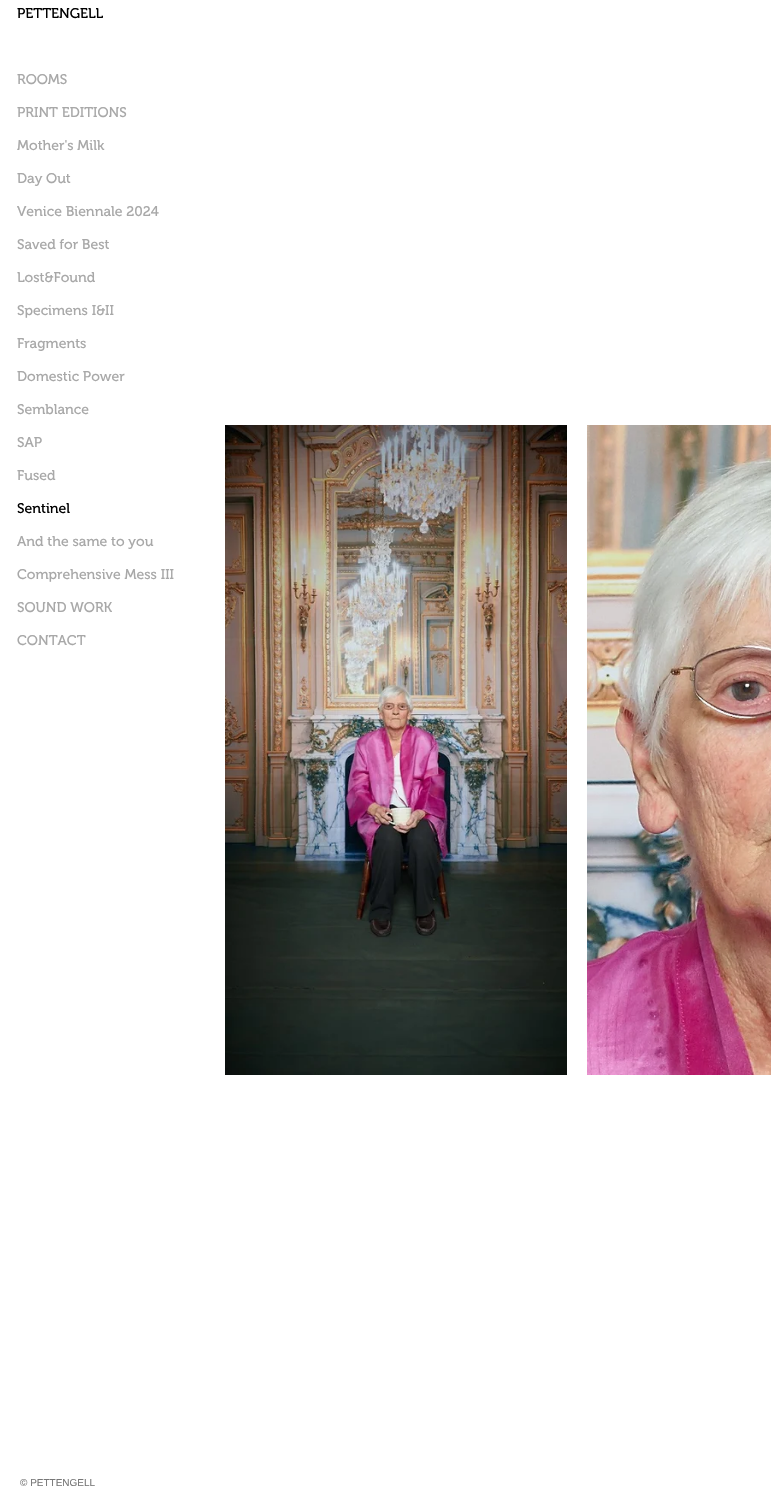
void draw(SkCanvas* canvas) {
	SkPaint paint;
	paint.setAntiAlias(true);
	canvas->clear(0xffffffff);
	SkFont f1(fontMgr->matchFamilyStyle("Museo", SkFontStyle::Normal()), 14);
	f1.setSubpixel(true);
	paint.setColor(0xff000000);
	canvas->drawString("PETTENGELL", 17, 18, f1, paint);
	paint.setColor(0xffa8a8a8);
	canvas->drawString("ROOMS", 17, 84, f1, paint);
	canvas->drawString("PRINT EDITIONS", 17, 117, f1, paint);
	canvas->drawString("Mother's Milk", 17, 150, f1, paint);
	canvas->drawString("Day Out", 17, 183, f1, paint);
	canvas->drawString("Venice Biennale 2024", 17, 216, f1, paint);
	canvas->drawString("Saved for Best", 17, 249, f1, paint);
	canvas->drawString("Lost&Found", 17, 282, f1, paint);
	canvas->drawString("Specimens I&II", 17, 315, f1, paint);
	canvas->drawString("Fragments", 17, 348, f1, paint);
	canvas->drawString("Domestic Power", 17, 381, f1, paint);
	canvas->drawString("Semblance", 17, 414, f1, paint);
	canvas->drawString("SAP", 17, 447, f1, paint);
	canvas->drawString("Fused", 17, 480, f1, paint);
	paint.setColor(0xff000000);
	canvas->drawString("Sentinel", 17, 513, f1, paint);
	paint.setColor(0xffa8a8a8);
	canvas->drawString("And the same to you", 17, 546, f1, paint);
	canvas->drawString("Comprehensive Mess III", 17, 579, f1, paint);
	canvas->drawString("SOUND WORK", 17, 612, f1, paint);
	canvas->drawString("CONTACT", 17, 645, f1, paint);
	canvas->drawImageRect(SkImages::DeferredFromEncodedData(SkData::MakeFromFileName("img1.png")), SkRect::MakeXYWH(225, 425, 342, 650), SkSamplingOptions());
	canvas->drawImageRect(SkImages::DeferredFromEncodedData(SkData::MakeFromFileName("img2.png")), SkRect::MakeXYWH(587, 425, 184, 650), SkSamplingOptions());
	SkFont f2(fontMgr->matchFamilyStyle("Liberation Sans", SkFontStyle::Normal()), 10);
	f2.setSubpixel(true);
	paint.setColor(0xff777777);
	canvas->drawString("© PETTENGELL", 20, 1486, f2, paint);
}
